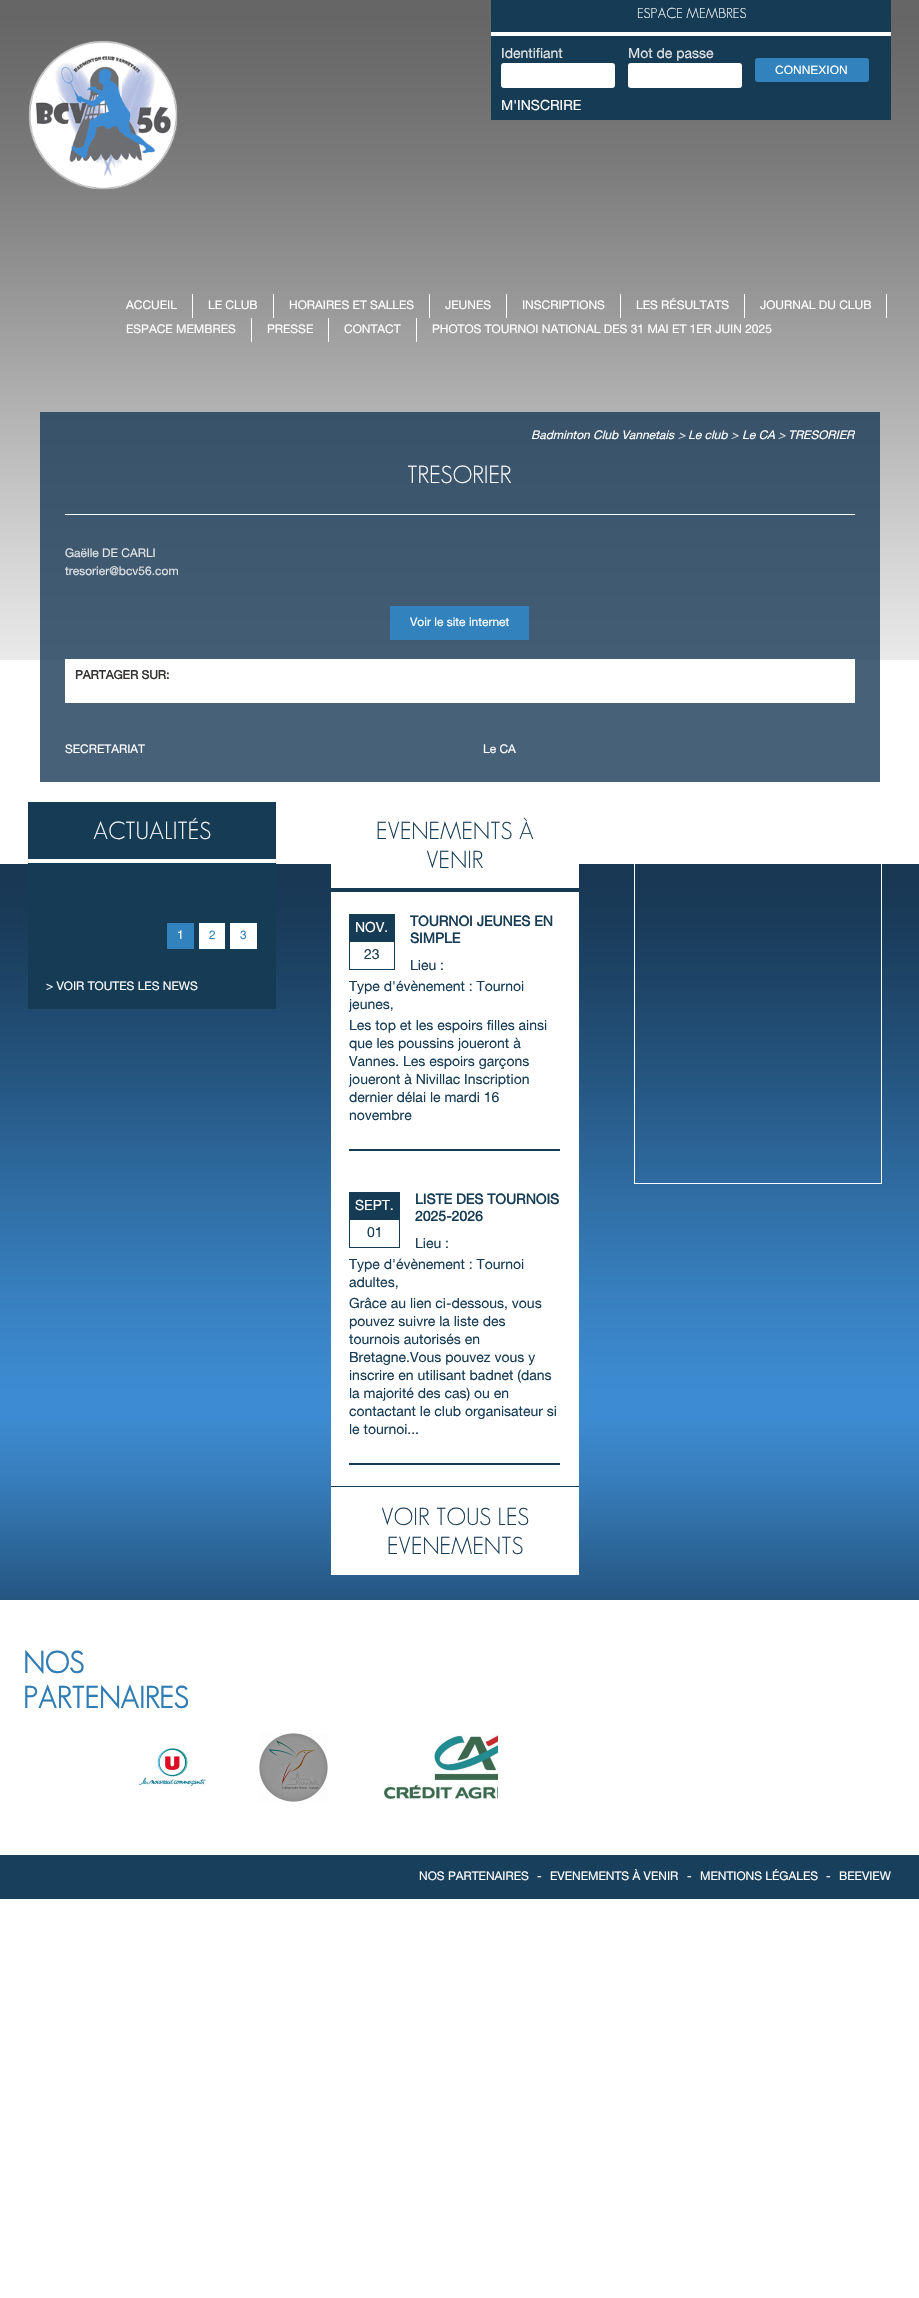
void draw(SkCanvas* canvas) {
	SkPaint paint;
	paint.setAntiAlias(true);
	canvas->clear(0xffffffff);
	canvas->drawImageRect(SkImages::DeferredFromEncodedData(SkData::MakeFromFileName("img1.png")), SkRect::MakeXYWH(0, 0, 919, 660), SkSamplingOptions());
	canvas->drawImageRect(SkImages::DeferredFromEncodedData(SkData::MakeFromFileName("img2.png")), SkRect::MakeXYWH(28, 40, 150, 150), SkSamplingOptions());
	paint.setColor(0xff163b55);
	canvas->drawRect(SkRect::MakeXYWH(491, 0, 400, 120), paint);
	paint.setColor(0xffffffff);
	canvas->drawRect(SkRect::MakeXYWH(491, 32, 400, 4), paint);
	SkFont f1(fontMgr->matchFamilyStyle("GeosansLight", SkFontStyle(300, SkFontStyle::kNormal_Width, SkFontStyle::kUpright_Slant)), 14);
	f1.setSubpixel(true);
	canvas->drawString("ESPACE MEMBRES", 637, 18, f1, paint);
	SkFont f2(fontMgr->matchFamilyStyle("Helvetica Neue", SkFontStyle::Normal()), 14);
	f2.setSubpixel(true);
	paint.setColor(0xffe2e4e5);
	canvas->drawString("Identifiant", 501, 58, f2, paint);
	paint.setColor(0xffffffff);
	canvas->drawRoundRect(SkRect::MakeXYWH(501, 63, 114, 25), 3, 3, paint);
	paint.setColor(0xffe2e4e5);
	canvas->drawString("Mot de passe", 628, 58, f2, paint);
	paint.setColor(0xffffffff);
	canvas->drawRoundRect(SkRect::MakeXYWH(628, 63, 114, 25), 3, 3, paint);
	paint.setColor(0xff3283bd);
	canvas->drawRoundRect(SkRect::MakeXYWH(755, 58, 114, 24), 3, 3, paint);
	SkFont f3(fontMgr->matchFamilyStyle("Liberation Sans", SkFontStyle::Normal()), 12);
	f3.setSubpixel(true);
	paint.setColor(0xffffffff);
	canvas->drawString("CONNEXION", 775, 74, f3, paint);
	canvas->drawString("M'INSCRIRE", 501, 110, f2, paint);
	canvas->drawRect(SkRect::MakeXYWH(192, 294, 1, 24), paint);
	SkFont f4(fontMgr->matchFamilyStyle("Helvetica Neue", SkFontStyle::Normal()), 12);
	f4.setSubpixel(true);
	canvas->drawString("ACCUEIL", 126, 309, f4, paint);
	canvas->drawRect(SkRect::MakeXYWH(273, 294, 1, 24), paint);
	canvas->drawString("LE CLUB", 208, 309, f4, paint);
	canvas->drawRect(SkRect::MakeXYWH(429, 294, 1, 24), paint);
	canvas->drawString("HORAIRES ET SALLES", 289, 309, f4, paint);
	canvas->drawRect(SkRect::MakeXYWH(506, 294, 1, 24), paint);
	canvas->drawString("JEUNES", 445, 309, f4, paint);
	canvas->drawRect(SkRect::MakeXYWH(620, 294, 1, 24), paint);
	canvas->drawString("INSCRIPTIONS", 522, 309, f4, paint);
	canvas->drawRect(SkRect::MakeXYWH(744, 294, 1, 24), paint);
	canvas->drawString("LES RÉSULTATS", 636, 309, f4, paint);
	canvas->drawRect(SkRect::MakeXYWH(886, 294, 1, 24), paint);
	canvas->drawString("JOURNAL DU CLUB", 760, 309, f4, paint);
	canvas->drawRect(SkRect::MakeXYWH(251, 318, 1, 24), paint);
	canvas->drawString("ESPACE MEMBRES", 126, 333, f4, paint);
	canvas->drawRect(SkRect::MakeXYWH(328, 318, 1, 24), paint);
	canvas->drawString("PRESSE", 267, 333, f4, paint);
	canvas->drawRect(SkRect::MakeXYWH(416, 318, 1, 24), paint);
	canvas->drawString("CONTACT", 344, 333, f4, paint);
	canvas->drawString("PHOTOS TOURNOI NATIONAL DES 31 MAI ET 1ER JUIN 2025", 432, 333, f4, paint);
	paint.setColor(0xcc193957);
	canvas->drawRect(SkRect::MakeXYWH(40, 412, 840, 370), paint);
	SkFont f5(fontMgr->matchFamilyStyle("Helvetica Neue", SkFontStyle::Italic()), 12);
	f5.setSubpixel(true);
	paint.setColor(0xffffffff);
	canvas->drawString("Badminton Club Vannetais", 531, 439, f5, paint);
	paint.setColor(0xffe2e4e5);
	canvas->drawString(">", 678, 439, f5, paint);
	paint.setColor(0xffffffff);
	canvas->drawString("Le club", 688, 439, f5, paint);
	paint.setColor(0xffe2e4e5);
	canvas->drawString(">", 731, 439, f5, paint);
	paint.setColor(0xffffffff);
	canvas->drawString("Le CA", 742, 439, f5, paint);
	paint.setColor(0xffe2e4e5);
	canvas->drawString(">", 778, 439, f5, paint);
	canvas->save();
	canvas->clipRect(SkRect::MakeXYWH(531, 427, 324, 18));
	paint.setColor(0xffffffff);
	canvas->drawString("TRESORIER", 788, 439, f5, paint);
	canvas->restore();
	canvas->drawRect(SkRect::MakeXYWH(65, 514, 790, 1), paint);
	SkFont f6(fontMgr->matchFamilyStyle("GeosansLight", SkFontStyle(300, SkFontStyle::kNormal_Width, SkFontStyle::kUpright_Slant)), 24);
	f6.setSubpixel(true);
	canvas->drawString("TRESORIER", 407, 483, f6, paint);
	paint.setColor(0xffe2e4e5);
	canvas->drawString("Gaëlle DE CARLI", 65, 557, f4, paint);
	canvas->drawString("tresorier@bcv56.com", 65, 575, f4, paint);
	paint.setColor(0xff3283bd);
	canvas->drawRect(SkRect::MakeXYWH(390, 606, 139, 34), paint);
	paint.setColor(0xffffffff);
	canvas->drawString("Voir le site internet", 410, 626, f4, paint);
	canvas->drawRect(SkRect::MakeXYWH(65, 659, 790, 44), paint);
	SkFont f7(fontMgr->matchFamilyStyle("Helvetica Neue", SkFontStyle::Bold()), 12);
	f7.setSubpixel(true);
	paint.setColor(0xff353432);
	canvas->drawString("PARTAGER SUR:", 75, 679, f7, paint);
	paint.setColor(0xffffffff);
	canvas->drawString("SECRETARIAT", 65, 753, f4, paint);
	canvas->drawString("Le CA", 483, 753, f4, paint);
	canvas->drawImageRect(SkImages::DeferredFromEncodedData(SkData::MakeFromFileName("img3.png")), SkRect::MakeXYWH(0, 864, 919, 736), SkSamplingOptions());
	paint.setColor(0xff163b55);
	canvas->drawRect(SkRect::MakeXYWH(28, 802, 248, 207), paint);
	paint.setColor(0xffffffff);
	canvas->drawRect(SkRect::MakeXYWH(28, 859, 248, 4), paint);
	canvas->drawString("ACTUALITÉS", 93, 839, f6, paint);
	paint.setColor(0xff3283bd);
	canvas->drawRect(SkRect::MakeXYWH(167, 923, 27, 26), paint);
	paint.setColor(0xffffffff);
	canvas->drawString("1", 177, 939, f4, paint);
	canvas->drawRect(SkRect::MakeXYWH(199, 923, 26, 26), paint);
	paint.setColor(0xff3283bd);
	canvas->drawString("2", 209, 939, f4, paint);
	paint.setColor(0xffffffff);
	canvas->drawRect(SkRect::MakeXYWH(230, 923, 27, 26), paint);
	paint.setColor(0xff3283bd);
	canvas->drawString("3", 240, 939, f4, paint);
	paint.setColor(0xffffffff);
	canvas->drawString("> VOIR TOUTES LES NEWS", 46, 990, f4, paint);
	canvas->drawRect(SkRect::MakeXYWH(331, 864, 248, 711), paint);
	paint.setColor(0xff163b55);
	canvas->drawRect(SkRect::MakeXYWH(331, 888, 248, 4), paint);
	canvas->drawString("EVENEMENTS À", 376, 839, f6, paint);
	canvas->drawString("VENIR", 426, 868, f6, paint);
	canvas->drawRect(SkRect::MakeXYWH(349, 1149, 211, 2), paint);
	paint.setStroke(true);
	paint.setStrokeWidth(1);
	canvas->drawRect(SkRect::MakeXYWH(349.5, 914.5, 45, 55), paint);
	paint.setStroke(false);
	canvas->drawRect(SkRect::MakeXYWH(350, 915, 44, 27), paint);
	paint.setColor(0xffffffff);
	canvas->drawString("NOV.", 355, 932, f2, paint);
	paint.setColor(0xff163b55);
	canvas->drawString("23", 364, 959, f2, paint);
	SkFont f8(fontMgr->matchFamilyStyle("Helvetica Neue", SkFontStyle::Bold()), 14);
	f8.setSubpixel(true);
	canvas->drawString("TOURNOI JEUNES EN", 410, 926, f8, paint);
	canvas->drawString("SIMPLE", 410, 943, f8, paint);
	canvas->drawString("Lieu :", 410, 970, f2, paint);
	canvas->drawString("Type d'évènement : Tournoi", 349, 991, f2, paint);
	canvas->drawString("jeunes,", 349, 1009, f2, paint);
	canvas->drawString("Les top et les espoirs filles ainsi", 349, 1030, f2, paint);
	canvas->drawString("que les poussins joueront à", 349, 1048, f2, paint);
	canvas->drawString("Vannes. Les espoirs garçons", 349, 1066, f2, paint);
	canvas->drawString("joueront à Nivillac Inscription", 349, 1084, f2, paint);
	canvas->drawString("dernier délai le mardi 16", 349, 1102, f2, paint);
	canvas->drawString("novembre", 349, 1120, f2, paint);
	canvas->drawRect(SkRect::MakeXYWH(349, 1463, 211, 2), paint);
	paint.setStroke(true);
	canvas->drawRect(SkRect::MakeXYWH(349.5, 1192.5, 50, 55), paint);
	paint.setStroke(false);
	canvas->drawRect(SkRect::MakeXYWH(350, 1193, 49, 27), paint);
	paint.setColor(0xffffffff);
	canvas->drawString("SEPT.", 355, 1210, f2, paint);
	paint.setColor(0xff163b55);
	canvas->drawString("01", 367, 1237, f2, paint);
	canvas->drawString("LISTE DES TOURNOIS", 415, 1204, f8, paint);
	canvas->drawString("2025-2026", 415, 1221, f8, paint);
	canvas->drawString("Lieu :", 415, 1248, f2, paint);
	canvas->drawString("Type d'évènement : Tournoi", 349, 1269, f2, paint);
	canvas->drawString("adultes,", 349, 1287, f2, paint);
	canvas->drawString("Grâce au lien ci-dessous, vous", 349, 1308, f2, paint);
	canvas->drawString("pouvez suivre la liste des", 349, 1326, f2, paint);
	canvas->drawString("tournois autorisés en", 349, 1344, f2, paint);
	canvas->drawString("Bretagne.Vous pouvez vous y", 349, 1362, f2, paint);
	canvas->drawString("inscrire en utilisant badnet (dans", 349, 1380, f2, paint);
	canvas->drawString("la majorité des cas) ou en", 349, 1398, f2, paint);
	canvas->drawString("contactant le club organisateur si", 349, 1416, f2, paint);
	canvas->drawString("le tournoi...", 349, 1434, f2, paint);
	canvas->drawRect(SkRect::MakeXYWH(331, 1486, 248, 1), paint);
	canvas->drawString("VOIR TOUS LES", 381, 1525, f6, paint);
	canvas->drawString("EVENEMENTS", 387, 1554, f6, paint);
	paint.setStroke(true);
	paint.setColor(0xffffffff);
	canvas->drawRect(SkRect::MakeXYWH(634.5, 802.5, 247, 381), paint);
	SkFont f9(fontMgr->matchFamilyStyle("GeosansLight", SkFontStyle::Bold()), 30);
	f9.setSubpixel(true);
	paint.setStroke(false);
	paint.setColor(0xff307db5);
	canvas->drawString("NOS", 23, 1673, f9, paint);
	canvas->drawString("PARTENAIRES", 23, 1708, f9, paint);
	canvas->drawImageRect(SkImages::DeferredFromEncodedData(SkData::MakeFromFileName("img4.png")), SkRect::MakeXYWH(139, 1747, 67, 39), SkSamplingOptions());
	canvas->drawImageRect(SkImages::DeferredFromEncodedData(SkData::MakeFromFileName("img5.png")), SkRect::MakeXYWH(259, 1733, 69, 69), SkSamplingOptions());
	canvas->drawImageRect(SkImages::DeferredFromEncodedData(SkData::MakeFromFileName("img6.png")), SkRect::MakeXYWH(383, 1734, 115, 67), SkSamplingOptions());
	paint.setColor(0xff183f5b);
	canvas->drawRect(SkRect::MakeXYWH(0, 1855, 919, 44), paint);
	paint.setColor(0xffffffff);
	canvas->drawString("NOS PARTENAIRES", 419, 1880, f4, paint);
	canvas->drawString("-", 537, 1880, f4, paint);
	canvas->drawString("EVENEMENTS À VENIR", 550, 1880, f4, paint);
	canvas->drawString("-", 687, 1880, f4, paint);
	canvas->drawString("MENTIONS LÉGALES", 700, 1880, f4, paint);
	canvas->drawString("-", 826, 1880, f4, paint);
	canvas->drawString("BEEVIEW", 839, 1880, f4, paint);
}
